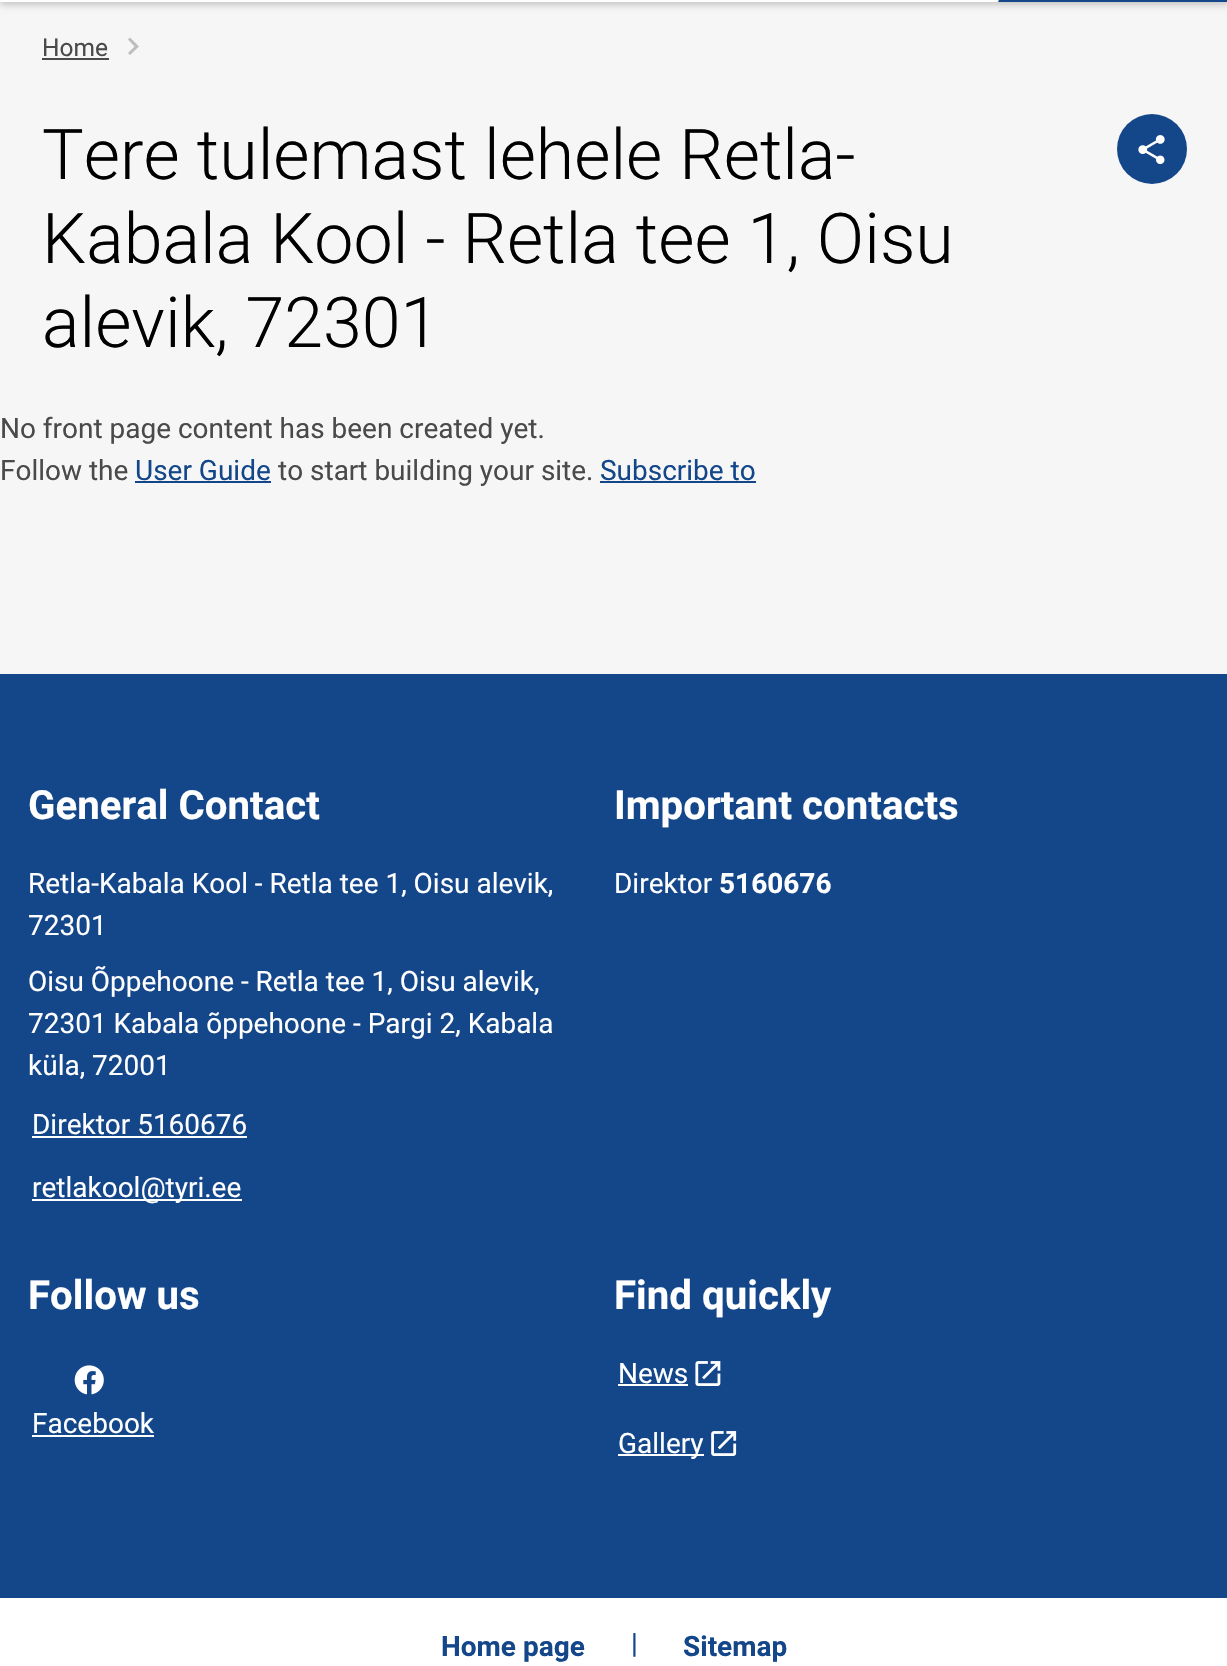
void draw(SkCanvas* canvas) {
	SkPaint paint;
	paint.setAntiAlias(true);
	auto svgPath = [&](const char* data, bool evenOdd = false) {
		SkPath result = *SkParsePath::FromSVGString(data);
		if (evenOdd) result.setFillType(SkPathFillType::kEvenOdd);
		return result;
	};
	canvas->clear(0xffffffff);
	paint.setColor(0xfff6f6f6);
	canvas->drawRect(SkRect::MakeXYWH(0, 2, 1227, 672), paint);
	canvas->save();
	canvas->clipPath(svgPath("M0 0H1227V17H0ZM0-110H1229V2H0Z", true), true);
	paint.setColor(0x33000000);
	paint.setMaskFilter(SkMaskFilter::MakeBlur(kNormal_SkBlurStyle, 3.5));
	canvas->drawRect(SkRect::MakeXYWH(0, -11, 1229, 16), paint);
	paint.setMaskFilter(nullptr);
	canvas->restore();
	paint.setColor(0xff14468a);
	canvas->drawRect(SkRect::MakeXYWH(998, 0, 229, 2), paint);
	paint.setColor(0xffffffff);
	canvas->drawPath(svgPath("M979-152H1066L998 2H910Z"), paint);
	SkFont f1(fontMgr->matchFamilyStyle("Roboto", SkFontStyle::Normal()), 24.5);
	f1.setSubpixel(true);
	paint.setColor(0xff4a4a4a);
	canvas->drawString("Home", 42, 56, f1, paint);
	canvas->drawRect(SkRect::MakeXYWH(42, 58, 67, 2), paint);
	paint.setColor(0xffbdbdbd);
	canvas->drawPath(svgPath("M128 53L134.5 46.5L128 39.5L130 37.5L139 46.5L130 55Z"), paint);
	SkFont f2(fontMgr->matchFamilyStyle("Roboto", SkFontStyle(300, SkFontStyle::kNormal_Width, SkFontStyle::kUpright_Slant)), 70);
	f2.setSubpixel(true);
	paint.setColor(0xff000000);
	canvas->drawString("Tere tulemast lehele Retla-", 42, 179, f2, paint);
	canvas->drawString("Kabala Kool - Retla tee 1, Oisu", 42, 263, f2, paint);
	canvas->drawString("alevik, 72301", 42, 347, f2, paint);
	paint.setColor(0xff14468a);
	canvas->drawCircle(1152, 149, 35, paint);
	canvas->drawImageRect(SkImages::DeferredFromEncodedData(SkData::MakeFromFileName("img1.png")), SkRect::MakeXYWH(1138, 135, 27, 29), SkSamplingOptions());
	SkFont f3(fontMgr->matchFamilyStyle("Roboto", SkFontStyle::Normal()), 28);
	f3.setSubpixel(true);
	paint.setColor(0xff4a4a4a);
	canvas->drawString("No front page content has been created yet.", 0, 438, f3, paint);
	canvas->drawString("Follow the", 0, 480, f3, paint);
	paint.setColor(0xff14468a);
	canvas->drawString("User Guide", 135, 480, f3, paint);
	canvas->drawRect(SkRect::MakeXYWH(135, 481, 136, 2), paint);
	paint.setColor(0xff4a4a4a);
	canvas->drawString("to start building your site.", 278, 480, f3, paint);
	paint.setColor(0xff14468a);
	canvas->drawString("Subscribe to", 600, 480, f3, paint);
	canvas->drawRect(SkRect::MakeXYWH(600, 481, 156, 2), paint);
	canvas->drawRect(SkRect::MakeXYWH(0, 674, 1227, 924), paint);
	SkFont f4(fontMgr->matchFamilyStyle("Roboto", SkFontStyle::Bold()), 40.25);
	f4.setSubpixel(true);
	paint.setColor(0xffffffff);
	canvas->drawString("General Contact", 28, 819, f4, paint);
	canvas->drawString("Retla-Kabala Kool - Retla tee 1, Oisu alevik,", 28, 893, f3, paint);
	canvas->drawString("72301", 28, 935, f3, paint);
	canvas->drawString("Oisu Õppehoone - Retla tee 1, Oisu alevik,", 28, 991, f3, paint);
	canvas->drawString("72301 Kabala õppehoone - Pargi 2, Kabala", 28, 1033, f3, paint);
	canvas->drawString("küla, 72001", 28, 1075, f3, paint);
	canvas->drawString("Direktor 5160676", 32, 1134, f3, paint);
	canvas->drawRect(SkRect::MakeXYWH(32, 1136, 215, 2), paint);
	canvas->drawRect(SkRect::MakeXYWH(32, 1199, 210, 2), paint);
	canvas->drawString("retlakool@tyri.ee", 32, 1197, f3, paint);
	canvas->drawString("Important contacts", 614, 819, f4, paint);
	canvas->drawString("Direktor", 614, 893, f3, paint);
	SkFont f5(fontMgr->matchFamilyStyle("Roboto", SkFontStyle::Bold()), 28);
	f5.setSubpixel(true);
	canvas->drawString("5160676", 719, 893, f5, paint);
	canvas->drawString("Follow us", 28, 1309, f4, paint);
	canvas->drawImageRect(SkImages::DeferredFromEncodedData(SkData::MakeFromFileName("img2.png")), SkRect::MakeXYWH(74, 1365, 30, 30), SkSamplingOptions());
	canvas->drawString("Facebook", 32, 1433, f3, paint);
	canvas->drawRect(SkRect::MakeXYWH(32, 1435, 122, 2), paint);
	canvas->drawString("Find quickly", 614, 1309, f4, paint);
	canvas->drawString("News", 618, 1383, f3, paint);
	canvas->drawRect(SkRect::MakeXYWH(618, 1384, 70, 2), paint);
	canvas->drawImageRect(SkImages::DeferredFromEncodedData(SkData::MakeFromFileName("img3.png")), SkRect::MakeXYWH(695, 1361, 26, 25), SkSamplingOptions());
	canvas->drawRect(SkRect::MakeXYWH(618, 1454, 86, 2), paint);
	canvas->drawString("Gallery", 618, 1453, f3, paint);
	canvas->drawImageRect(SkImages::DeferredFromEncodedData(SkData::MakeFromFileName("img4.png")), SkRect::MakeXYWH(711, 1431, 26, 25), SkSamplingOptions());
	paint.setColor(0xff14468a);
	canvas->drawString("Home page", 441, 1656, f5, paint);
	canvas->drawString("|", 631, 1653, f3, paint);
	canvas->drawString("Sitemap", 683, 1656, f5, paint);
}
